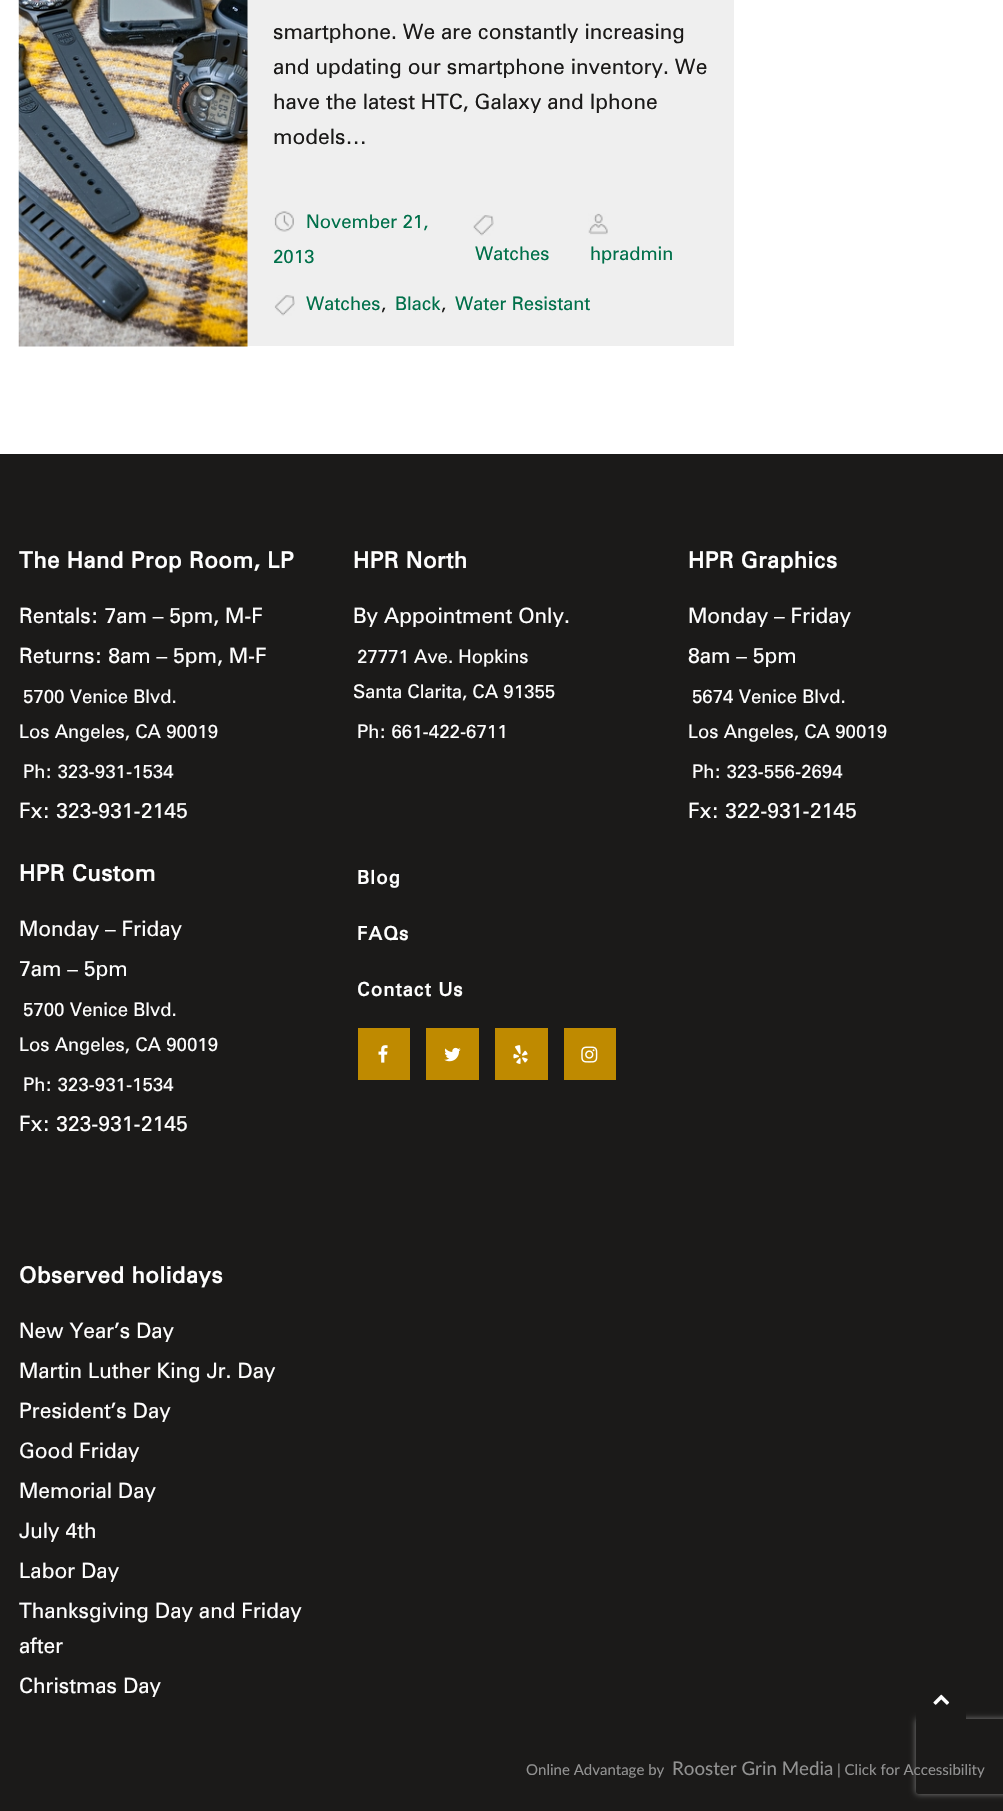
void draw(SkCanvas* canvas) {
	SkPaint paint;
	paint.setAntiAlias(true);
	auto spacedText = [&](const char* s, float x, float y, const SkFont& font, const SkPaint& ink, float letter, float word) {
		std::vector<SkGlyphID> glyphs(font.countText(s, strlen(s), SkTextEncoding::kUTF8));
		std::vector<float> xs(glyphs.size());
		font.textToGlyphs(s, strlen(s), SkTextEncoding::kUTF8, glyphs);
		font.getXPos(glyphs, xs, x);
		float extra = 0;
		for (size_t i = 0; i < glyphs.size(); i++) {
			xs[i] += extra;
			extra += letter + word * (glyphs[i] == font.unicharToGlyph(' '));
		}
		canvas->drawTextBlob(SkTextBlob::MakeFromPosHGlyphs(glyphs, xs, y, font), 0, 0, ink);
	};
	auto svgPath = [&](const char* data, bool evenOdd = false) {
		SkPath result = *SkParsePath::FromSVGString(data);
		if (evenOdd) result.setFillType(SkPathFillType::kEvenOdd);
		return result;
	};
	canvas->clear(0xffffffff);
	paint.setColor(0xffefefef);
	canvas->drawRect(SkRect::MakeXYWH(247, 0, 487, 346), paint);
	canvas->drawImageRect(SkImages::DeferredFromEncodedData(SkData::MakeFromFileName("img1.png")), SkRect::MakeXYWH(18, 0, 230, 347), SkSamplingOptions());
	SkFont f1(fontMgr->matchFamilyStyle("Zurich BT", SkFontStyle::Normal()), 21.25);
	f1.setSubpixel(true);
	paint.setColor(0xff1b1a19);
	canvas->drawString("smartphone. We are constantly increasing", 273, 39, f1, paint);
	canvas->drawString("and updating our smartphone inventory. We", 273, 74, f1, paint);
	canvas->drawString("have the latest HTC, Galaxy and Iphone", 273, 109, f1, paint);
	canvas->drawString("models…", 273, 144, f1, paint);
	canvas->drawImageRect(SkImages::DeferredFromEncodedData(SkData::MakeFromFileName("img2.png")), SkRect::MakeXYWH(274, 211, 20, 21), SkSamplingOptions());
	SkFont f2(fontMgr->matchFamilyStyle("Zurich BT", SkFontStyle::Normal()), 18.75);
	f2.setSubpixel(true);
	paint.setColor(0xff00704a);
	canvas->drawString("November 21,", 306, 228, f2, paint);
	canvas->drawString("2013", 273, 263, f2, paint);
	canvas->drawImageRect(SkImages::DeferredFromEncodedData(SkData::MakeFromFileName("img3.png")), SkRect::MakeXYWH(473, 215, 21, 21), SkSamplingOptions());
	canvas->drawString("Watches", 475, 260, f2, paint);
	canvas->drawImageRect(SkImages::DeferredFromEncodedData(SkData::MakeFromFileName("img4.png")), SkRect::MakeXYWH(588, 213, 20, 22), SkSamplingOptions());
	canvas->drawString("hpradmin", 590, 260, f2, paint);
	canvas->drawImageRect(SkImages::DeferredFromEncodedData(SkData::MakeFromFileName("img5.png")), SkRect::MakeXYWH(274, 295, 21, 21), SkSamplingOptions());
	canvas->drawString("Watches", 306, 310, f2, paint);
	paint.setColor(0xff1b1a19);
	canvas->drawString(",", 381, 310, f2, paint);
	paint.setColor(0xff00704a);
	canvas->drawString("Black", 395, 310, f2, paint);
	paint.setColor(0xff1b1a19);
	canvas->drawString(",", 441, 310, f2, paint);
	paint.setColor(0xff00704a);
	canvas->drawString("Water Resistant", 455, 310, f2, paint);
	paint.setColor(0xff1b1a19);
	canvas->drawRect(SkRect::MakeXYWH(0, 454, 1003, 1357), paint);
	SkFont f3(fontMgr->matchFamilyStyle("Zurich BT", SkFontStyle::Bold()), 22.5);
	f3.setSubpixel(true);
	paint.setColor(0xffffffff);
	spacedText("The Hand Prop Room, LP", 19, 568, f3, paint, 0.6, 0);
	canvas->drawString("Rentals: 7am – 5pm, M-F", 19, 623, f1, paint);
	canvas->drawString("Returns: 8am – 5pm, M-F", 19, 663, f1, paint);
	canvas->drawString("5700 Venice Blvd.", 23, 703, f2, paint);
	canvas->drawString("Los Angeles, CA 90019", 19, 738, f2, paint);
	canvas->drawString("Ph: 323-931-1534", 23, 778, f2, paint);
	canvas->drawString("Fx: 323-931-2145", 19, 818, f1, paint);
	spacedText("HPR North", 353, 568, f3, paint, 0.6, 0);
	canvas->drawString("By Appointment Only.", 353, 623, f1, paint);
	canvas->drawString("27771 Ave. Hopkins", 357, 663, f2, paint);
	canvas->drawString("Santa Clarita, CA 91355", 353, 698, f2, paint);
	canvas->drawString("Ph: 661-422-6711", 357, 738, f2, paint);
	spacedText("HPR Graphics", 688, 568, f3, paint, 0.6, 0);
	canvas->drawString("Monday – Friday", 688, 623, f1, paint);
	canvas->drawString("8am – 5pm", 688, 663, f1, paint);
	canvas->drawString("5674 Venice Blvd.", 692, 703, f2, paint);
	canvas->drawString("Los Angeles, CA 90019", 688, 738, f2, paint);
	canvas->drawString("Ph: 323-556-2694", 692, 778, f2, paint);
	canvas->drawString("Fx: 322-931-2145", 688, 818, f1, paint);
	spacedText("HPR Custom", 19, 881, f3, paint, 0.6, 0);
	canvas->drawString("Monday – Friday", 19, 936, f1, paint);
	canvas->drawString("7am – 5pm", 19, 976, f1, paint);
	canvas->drawString("5700 Venice Blvd.", 23, 1016, f2, paint);
	canvas->drawString("Los Angeles, CA 90019", 19, 1051, f2, paint);
	canvas->drawString("Ph: 323-931-1534", 23, 1091, f2, paint);
	canvas->drawString("Fx: 323-931-2145", 19, 1131, f1, paint);
	SkFont f4(fontMgr->matchFamilyStyle("Zurich BT", SkFontStyle::Bold()), 18.75);
	f4.setSubpixel(true);
	spacedText("Blog", 357, 884, f4, paint, 1.25, 0);
	spacedText("FAQs", 357, 940, f4, paint, 1.25, 0);
	spacedText("Contact Us", 357, 996, f4, paint, 1.25, 0);
	paint.setColor(0xffbf8a00);
	canvas->drawRect(SkRect::MakeXYWH(358, 1028, 52, 52), paint);
	canvas->drawImageRect(SkImages::DeferredFromEncodedData(SkData::MakeFromFileName("img6.png")), SkRect::MakeXYWH(378, 1045, 10, 18), SkSamplingOptions());
	canvas->drawRect(SkRect::MakeXYWH(426, 1028, 53, 52), paint);
	canvas->drawImageRect(SkImages::DeferredFromEncodedData(SkData::MakeFromFileName("img7.png")), SkRect::MakeXYWH(444, 1047, 17, 15), SkSamplingOptions());
	canvas->drawRect(SkRect::MakeXYWH(495, 1028, 53, 52), paint);
	canvas->drawImageRect(SkImages::DeferredFromEncodedData(SkData::MakeFromFileName("img8.png")), SkRect::MakeXYWH(513, 1045, 15, 19), SkSamplingOptions());
	canvas->drawRect(SkRect::MakeXYWH(564, 1028, 52, 52), paint);
	canvas->drawImageRect(SkImages::DeferredFromEncodedData(SkData::MakeFromFileName("img9.png")), SkRect::MakeXYWH(581, 1046, 17, 17), SkSamplingOptions());
	paint.setColor(0xffffffff);
	spacedText("Observed holidays", 19, 1283, f3, paint, 0.6, 0);
	canvas->drawString("New Year’s Day", 19, 1338, f1, paint);
	canvas->drawString("Martin Luther King Jr. Day", 19, 1378, f1, paint);
	canvas->drawString("President’s Day", 19, 1418, f1, paint);
	canvas->drawString("Good Friday", 19, 1458, f1, paint);
	canvas->drawString("Memorial Day", 19, 1498, f1, paint);
	canvas->drawString("July 4th", 19, 1538, f1, paint);
	canvas->drawString("Labor Day", 19, 1578, f1, paint);
	canvas->drawString("Thanksgiving Day and Friday", 19, 1618, f1, paint);
	canvas->drawString("after", 19, 1653, f1, paint);
	canvas->drawString("Christmas Day", 19, 1693, f1, paint);
	SkFont f5(fontMgr->matchFamilyStyle("Lato", SkFontStyle::Normal()), 15);
	f5.setSubpixel(true);
	paint.setColor(0xff929292);
	canvas->drawString("Online Advantage by", 526, 1775, f5, paint);
	SkFont f6(fontMgr->matchFamilyStyle("Lato", SkFontStyle::Normal()), 18.75);
	f6.setSubpixel(true);
	canvas->drawString("Rooster Grin Media", 672, 1775, f6, paint);
	canvas->drawString("| Click for Accessibility", 837, 1775, f5, paint);
	canvas->save();
	canvas->clipPath(svgPath("M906 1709H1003V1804H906ZM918.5 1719H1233.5C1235 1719 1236 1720 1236 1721.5V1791.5C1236 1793 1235 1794 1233.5 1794H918.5C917 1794 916 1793 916 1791.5V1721.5C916 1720 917 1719 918.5 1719Z", true), true);
	paint.setColor(0xff808080);
	paint.setMaskFilter(SkMaskFilter::MakeBlur(kNormal_SkBlurStyle, 3));
	canvas->drawRoundRect(SkRect::MakeXYWH(916, 1719, 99, 75), 2.5, 2.5, paint);
	paint.setMaskFilter(nullptr);
	canvas->restore();
	paint.setColor(0xff1b1a19);
	canvas->drawRoundRect(SkRect::MakeXYWH(916, 1674, 50, 50), 5, 5, paint);
	canvas->drawImageRect(SkImages::DeferredFromEncodedData(SkData::MakeFromFileName("img10.png")), SkRect::MakeXYWH(933, 1694, 17, 11), SkSamplingOptions());
}
